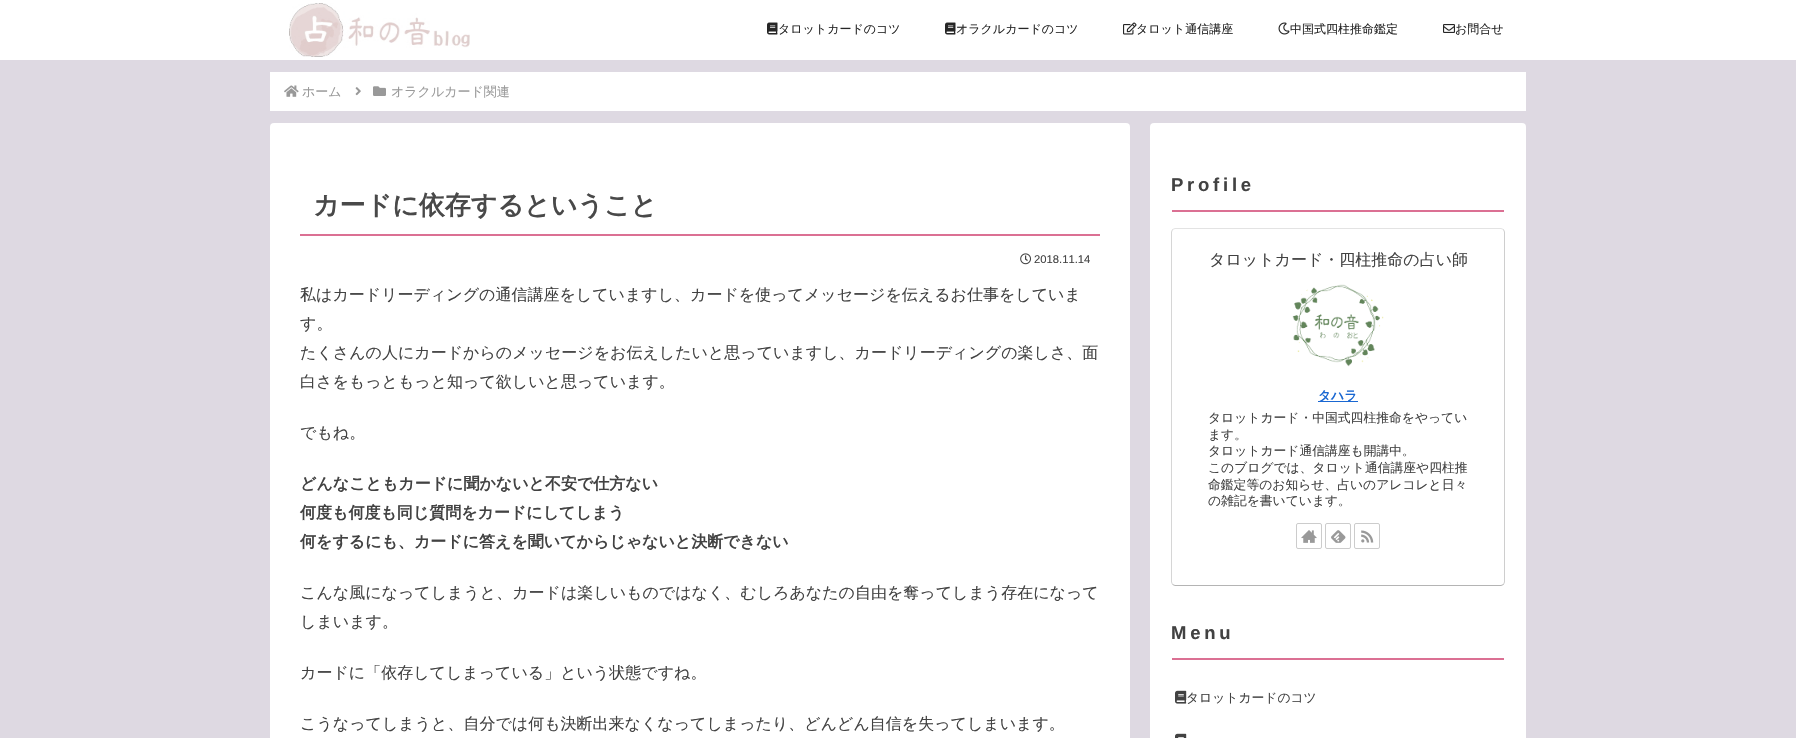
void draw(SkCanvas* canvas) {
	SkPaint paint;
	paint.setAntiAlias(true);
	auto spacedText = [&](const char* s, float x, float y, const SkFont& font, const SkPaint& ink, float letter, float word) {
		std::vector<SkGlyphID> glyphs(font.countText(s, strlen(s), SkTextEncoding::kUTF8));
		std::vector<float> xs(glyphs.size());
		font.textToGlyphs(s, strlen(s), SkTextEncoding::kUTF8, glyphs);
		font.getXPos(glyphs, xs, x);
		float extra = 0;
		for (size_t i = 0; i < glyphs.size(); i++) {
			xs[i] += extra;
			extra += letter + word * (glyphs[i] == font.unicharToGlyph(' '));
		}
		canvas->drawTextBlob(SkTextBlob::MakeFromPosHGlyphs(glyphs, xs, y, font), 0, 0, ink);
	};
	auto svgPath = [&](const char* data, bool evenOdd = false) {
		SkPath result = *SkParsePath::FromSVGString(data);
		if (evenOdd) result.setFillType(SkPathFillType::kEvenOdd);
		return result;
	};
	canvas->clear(0xffded9e2);
	paint.setColor(0xffffffff);
	canvas->drawRect(SkRect::MakeXYWH(0, 0, 1796, 60), paint);
	canvas->drawImageRect(SkImages::DeferredFromEncodedData(SkData::MakeFromFileName("img1.png")), SkRect::MakeXYWH(289, 3, 181, 54), SkSamplingOptions());
	canvas->drawImageRect(SkImages::DeferredFromEncodedData(SkData::MakeFromFileName("img2.png")), SkRect::MakeXYWH(767, 22, 11, 13), SkSamplingOptions());
	SkFont f1(fontMgr->matchFamilyStyle("WenQuanYi Zen Hei", SkFontStyle(500, SkFontStyle::kNormal_Width, SkFontStyle::kUpright_Slant)), 12);
	f1.setSubpixel(true);
	paint.setColor(0xff262626);
	canvas->drawString("タロットカードのコツ", 778, 33, f1, paint);
	canvas->drawImageRect(SkImages::DeferredFromEncodedData(SkData::MakeFromFileName("img2.png")), SkRect::MakeXYWH(945, 22, 11, 13), SkSamplingOptions());
	canvas->drawString("オラクルカードのコツ", 956, 33, f1, paint);
	canvas->drawImageRect(SkImages::DeferredFromEncodedData(SkData::MakeFromFileName("img3.png")), SkRect::MakeXYWH(1123, 22, 14, 13), SkSamplingOptions());
	canvas->drawString("タロット通信講座", 1136, 33, f1, paint);
	canvas->drawImageRect(SkImages::DeferredFromEncodedData(SkData::MakeFromFileName("img4.png")), SkRect::MakeXYWH(1278, 22, 12, 13), SkSamplingOptions());
	canvas->drawString("中国式四柱推命鑑定", 1290, 33, f1, paint);
	canvas->drawImageRect(SkImages::DeferredFromEncodedData(SkData::MakeFromFileName("img5.png")), SkRect::MakeXYWH(1443, 24, 12, 9), SkSamplingOptions());
	canvas->drawString("お問合せ", 1455, 33, f1, paint);
	paint.setColor(0xffffffff);
	canvas->drawRect(SkRect::MakeXYWH(270, 72, 1256, 39), paint);
	canvas->drawImageRect(SkImages::DeferredFromEncodedData(SkData::MakeFromFileName("img6.png")), SkRect::MakeXYWH(284, 85, 15, 12), SkSamplingOptions());
	SkFont f2(fontMgr->matchFamilyStyle("WenQuanYi Zen Hei", SkFontStyle(500, SkFontStyle::kNormal_Width, SkFontStyle::kUpright_Slant)), 13);
	f2.setSubpixel(true);
	paint.setColor(0xff999999);
	canvas->drawString("ホーム", 302, 96, f2, paint);
	canvas->drawImageRect(SkImages::DeferredFromEncodedData(SkData::MakeFromFileName("img7.png")), SkRect::MakeXYWH(355, 87, 6, 9), SkSamplingOptions());
	canvas->drawImageRect(SkImages::DeferredFromEncodedData(SkData::MakeFromFileName("img8.png")), SkRect::MakeXYWH(373, 86, 13, 10), SkSamplingOptions());
	canvas->drawString("オラクルカード関連", 391, 96, f2, paint);
	paint.setColor(0xffffffff);
	canvas->drawRoundRect(SkRect::MakeXYWH(270, 123, 860, 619), 4, 4, paint);
	paint.setColor(0xffdb7093);
	canvas->drawRect(SkRect::MakeXYWH(300, 234, 800, 2), paint);
	SkFont f3(fontMgr->matchFamilyStyle("WenQuanYi Zen Hei", SkFontStyle::Bold()), 26);
	f3.setSubpixel(true);
	paint.setColor(0xff494949);
	canvas->drawString("カードに依存するということ", 313, 214, f3, paint);
	canvas->drawImageRect(SkImages::DeferredFromEncodedData(SkData::MakeFromFileName("img9.png")), SkRect::MakeXYWH(1020, 253, 11, 12), SkSamplingOptions());
	SkFont f4(fontMgr->matchFamilyStyle("Liberation Sans", SkFontStyle::Normal()), 11.25);
	f4.setSubpixel(true);
	paint.setColor(0xff424242);
	canvas->drawString("2018.11.14", 1034, 263, f4, paint);
	SkFont f5(fontMgr->matchFamilyStyle("WenQuanYi Zen Hei", SkFontStyle(500, SkFontStyle::kNormal_Width, SkFontStyle::kUpright_Slant)), 16);
	f5.setSubpixel(true);
	canvas->drawString("私はカードリーディングの通信講座をしていますし、カードを使ってメッセージを伝えるお仕事をしていま", 300, 300, f5, paint);
	canvas->drawString("す。", 300, 329, f5, paint);
	canvas->drawString("たくさんの人にカードからのメッセージをお伝えしたいと思っていますし、カードリーディングの楽しさ、面", 300, 358, f5, paint);
	canvas->drawString("白さをもっともっと知って欲しいと思っています。", 300, 387, f5, paint);
	canvas->drawString("でもね。", 300, 438, f5, paint);
	SkFont f6(fontMgr->matchFamilyStyle("WenQuanYi Zen Hei", SkFontStyle::Bold()), 16);
	f6.setSubpixel(true);
	canvas->drawString("どんなこともカードに聞かないと不安で仕方ない", 300, 489, f6, paint);
	canvas->drawString("何度も何度も同じ質問をカードにしてしまう", 300, 518, f6, paint);
	canvas->drawString("何をするにも、カードに答えを聞いてからじゃないと決断できない", 300, 547, f6, paint);
	canvas->drawString("こんな風になってしまうと、カードは楽しいものではなく、むしろあなたの自由を奪ってしまう存在になって", 300, 598, f5, paint);
	canvas->drawString("しまいます。", 300, 627, f5, paint);
	canvas->drawString("カードに「依存してしまっている」という状態ですね。", 300, 678, f5, paint);
	canvas->drawString("こうなってしまうと、自分では何も決断出来なくなってしまったり、どんどん自信を失ってしまいます。", 300, 729, f5, paint);
	paint.setColor(0xffffffff);
	canvas->drawRoundRect(SkRect::MakeXYWH(1150, 123, 376, 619), 4, 4, paint);
	paint.setColor(0xffdb7093);
	canvas->drawRect(SkRect::MakeXYWH(1172, 210, 332, 2), paint);
	SkFont f7(fontMgr->matchFamilyStyle("Liberation Sans", SkFontStyle::Bold()), 18.5);
	f7.setSubpixel(true);
	paint.setColor(0xff424242);
	spacedText("Profile", 1171, 191, f7, paint, 3.75, 0);
	paint.setStroke(true);
	paint.setStrokeWidth(1);
	paint.setColor(0xffe3e3e3);
	canvas->drawPath(svgPath("M1172.5 229.5L1175 228.5H1501L1503.5 229.5"), paint);
	paint.setColor(0xffcecece);
	canvas->drawPath(svgPath("M1503.5 229.5L1504.5 232V582L1503.5 584.5"), paint);
	paint.setColor(0xffb4b4b4);
	canvas->drawPath(svgPath("M1503.5 584.5L1501 585.5H1175L1172.5 584.5"), paint);
	paint.setColor(0xffd6d6d6);
	canvas->drawPath(svgPath("M1172.5 584.5L1171.5 582V232L1172.5 229.5"), paint);
	paint.setStroke(false);
	paint.setColor(0xff424242);
	canvas->drawString("タロットカード・四柱推命の占い師", 1209, 265, f5, paint);
	canvas->drawImageRect(SkImages::DeferredFromEncodedData(SkData::MakeFromFileName("img10.png")), SkRect::MakeXYWH(1292, 284, 92, 83), SkSamplingOptions());
	paint.setColor(0xff1967d2);
	canvas->drawRect(SkRect::MakeXYWH(1318, 401, 40, 1), paint);
	SkFont f8(fontMgr->matchFamilyStyle("WenQuanYi Zen Hei", SkFontStyle::Bold()), 12.8);
	f8.setSubpixel(true);
	canvas->drawString("タハラ", 1318, 400, f8, paint);
	SkFont f9(fontMgr->matchFamilyStyle("WenQuanYi Zen Hei", SkFontStyle(500, SkFontStyle::kNormal_Width, SkFontStyle::kUpright_Slant)), 12.8);
	f9.setSubpixel(true);
	paint.setColor(0xff424242);
	canvas->drawString("タロットカード・中国式四柱推命をやってい", 1208, 422, f9, paint);
	canvas->drawString("ます。", 1208, 439, f9, paint);
	canvas->drawString("タロットカード通信講座も開講中。", 1208, 455, f9, paint);
	canvas->drawString("このブログでは、タロット通信講座や四柱推", 1208, 472, f9, paint);
	canvas->drawString("命鑑定等のお知らせ、占いのアレコレと日々", 1208, 489, f9, paint);
	canvas->drawString("の雑記を書いています。", 1208, 505, f9, paint);
	paint.setStroke(true);
	paint.setColor(0xffcccccc);
	canvas->drawRoundRect(SkRect::MakeXYWH(1296.5, 523.5, 25, 25), 1.5, 1.5, paint);
	canvas->drawImageRect(SkImages::DeferredFromEncodedData(SkData::MakeFromFileName("img11.png")), SkRect::MakeXYWH(1301, 530, 16, 13), SkSamplingOptions());
	canvas->drawRoundRect(SkRect::MakeXYWH(1325.5, 523.5, 25, 25), 1.5, 1.5, paint);
	canvas->drawImageRect(SkImages::DeferredFromEncodedData(SkData::MakeFromFileName("img12.png")), SkRect::MakeXYWH(1331, 530, 15, 13), SkSamplingOptions());
	canvas->drawRoundRect(SkRect::MakeXYWH(1354.5, 523.5, 25, 25), 1.5, 1.5, paint);
	canvas->drawImageRect(SkImages::DeferredFromEncodedData(SkData::MakeFromFileName("img13.png")), SkRect::MakeXYWH(1361, 530, 13, 13), SkSamplingOptions());
	paint.setStroke(false);
	paint.setColor(0xffdb7093);
	canvas->drawRect(SkRect::MakeXYWH(1172, 658, 332, 2), paint);
	paint.setColor(0xff424242);
	spacedText("Menu", 1171, 639, f7, paint, 3.75, 0);
	canvas->drawImageRect(SkImages::DeferredFromEncodedData(SkData::MakeFromFileName("img14.png")), SkRect::MakeXYWH(1175, 690, 12, 14), SkSamplingOptions());
	canvas->drawString("タロットカードのコツ", 1186, 702, f9, paint);
	canvas->drawImageRect(SkImages::DeferredFromEncodedData(SkData::MakeFromFileName("img15.png")), SkRect::MakeXYWH(1175, 733, 12, 5), SkSamplingOptions());
}
